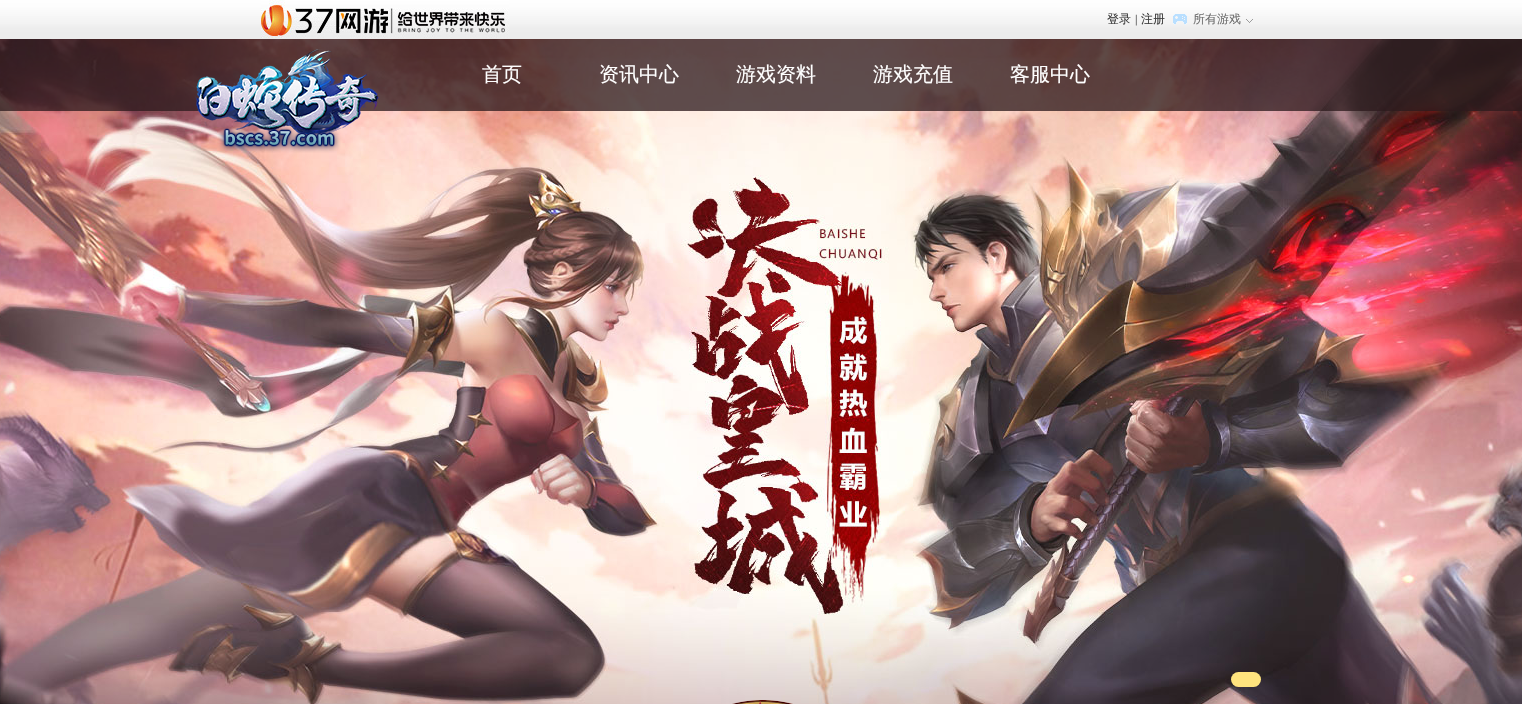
void draw(SkCanvas* canvas) {
	SkPaint paint;
	paint.setAntiAlias(true);
	canvas->clear(0xffececec);
	canvas->drawImageRect(SkImages::DeferredFromEncodedData(SkData::MakeFromFileName("img1.png")), SkRect::MakeXYWH(0, 0, 1522, 38), SkSamplingOptions());
	canvas->drawImageRect(SkImages::DeferredFromEncodedData(SkData::MakeFromFileName("img2.png")), SkRect::MakeXYWH(261, 0, 248, 38), SkSamplingOptions());
	SkFont f1(fontMgr->matchFamilyStyle("WenQuanYi Zen Hei", SkFontStyle(500, SkFontStyle::kNormal_Width, SkFontStyle::kUpright_Slant)), 12);
	f1.setSubpixel(true);
	paint.setColor(0xff3c3c3c);
	canvas->drawString("登录", 1107, 23, f1, paint);
	SkFont f2(fontMgr->matchFamilyStyle("Liberation Serif", SkFontStyle::Normal()), 12);
	f2.setSubpixel(true);
	canvas->drawString("|", 1135, 23, f2, paint);
	canvas->drawString("注册", 1141, 23, f1, paint);
	canvas->drawImageRect(SkImages::DeferredFromEncodedData(SkData::MakeFromFileName("img3.png")), SkRect::MakeXYWH(1173, 14, 14, 11), SkSamplingOptions());
	paint.setColor(0xff6c6c6c);
	canvas->drawString("所有游戏", 1193, 23, f1, paint);
	canvas->drawImageRect(SkImages::DeferredFromEncodedData(SkData::MakeFromFileName("img4.png")), SkRect::MakeXYWH(1246, 19, 7, 4), SkSamplingOptions());
	canvas->drawImageRect(SkImages::DeferredFromEncodedData(SkData::MakeFromFileName("img5.png")), SkRect::MakeXYWH(0, 39, 1522, 665), SkSamplingOptions());
	paint.setColor(0xffffe47e);
	canvas->drawRoundRect(SkRect::MakeXYWH(1231, 672, 30, 15), 7.5, 7.5, paint);
	paint.setColor(0xc22b191c);
	canvas->drawRect(SkRect::MakeXYWH(0, 39, 1522, 72), paint);
	canvas->drawImageRect(SkImages::DeferredFromEncodedData(SkData::MakeFromFileName("img6.png")), SkRect::MakeXYWH(193, 49, 187, 104), SkSamplingOptions());
	SkFont f3(fontMgr->matchFamilyStyle("WenQuanYi Zen Hei", SkFontStyle(500, SkFontStyle::kNormal_Width, SkFontStyle::kUpright_Slant)), 20);
	f3.setSubpixel(true);
	paint.setColor(0xffffffff);
	canvas->drawString("首页", 482, 81, f3, paint);
	canvas->drawString("资讯中心", 599, 81, f3, paint);
	canvas->drawString("游戏资料", 736, 81, f3, paint);
	canvas->drawString("游戏充值", 873, 81, f3, paint);
	canvas->drawString("客服中心", 1010, 81, f3, paint);
	canvas->drawImageRect(SkImages::DeferredFromEncodedData(SkData::MakeFromFileName("img7.png")), SkRect::MakeXYWH(732, 700, 61, 4), SkSamplingOptions());
}
